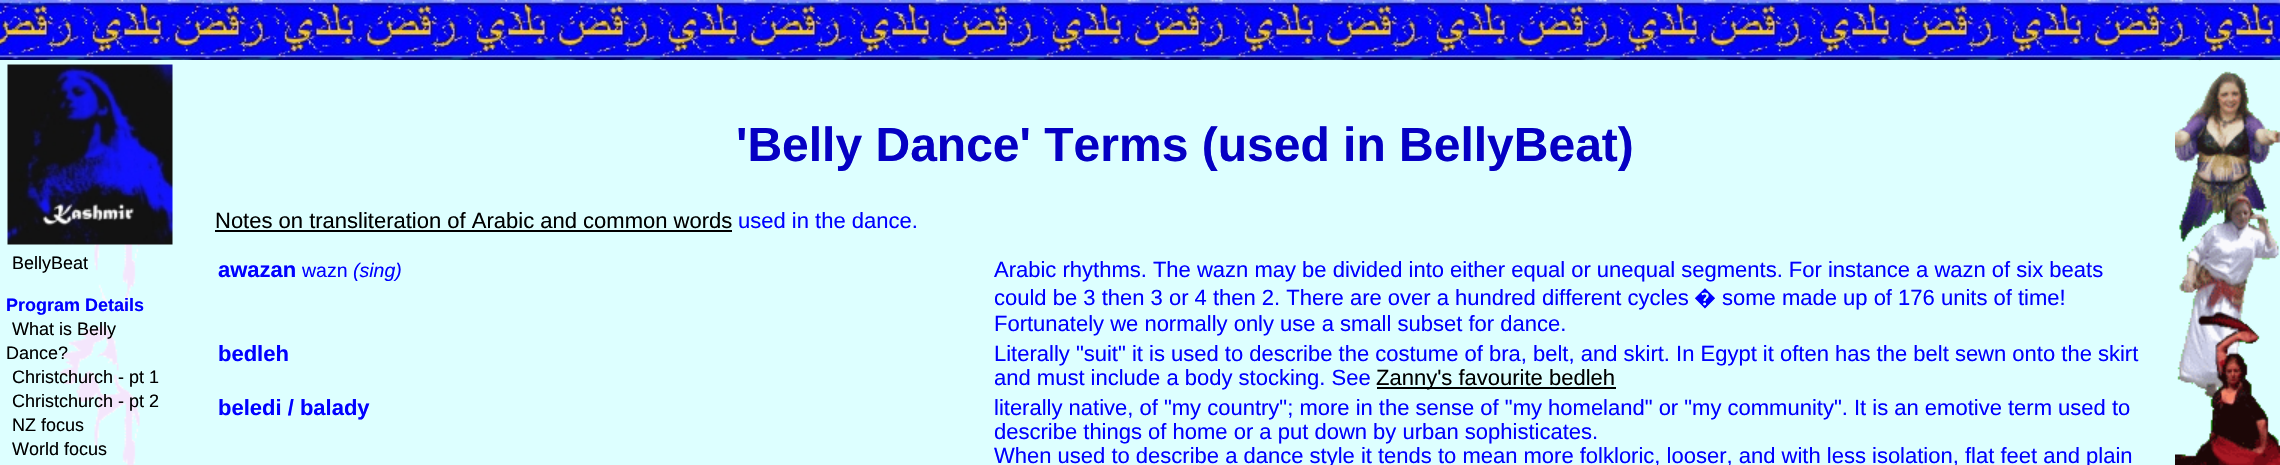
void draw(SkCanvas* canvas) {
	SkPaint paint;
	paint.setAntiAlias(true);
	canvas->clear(0xffddffff);
	canvas->drawImageRect(SkImages::DeferredFromEncodedData(SkData::MakeFromFileName("img1.png")), SkRect::MakeXYWH(2175, 60, 105, 405), SkSamplingOptions());
	canvas->drawImageRect(SkImages::DeferredFromEncodedData(SkData::MakeFromFileName("img2.png")), SkRect::MakeXYWH(0, 0, 2280, 60), SkSamplingOptions());
	canvas->drawImageRect(SkImages::DeferredFromEncodedData(SkData::MakeFromFileName("img3.png")), SkRect::MakeXYWH(60, 64, 80, 401), SkSamplingOptions());
	canvas->drawImageRect(SkImages::DeferredFromEncodedData(SkData::MakeFromFileName("img4.png")), SkRect::MakeXYWH(7, 64, 166, 181), SkSamplingOptions());
	SkFont f1(fontMgr->matchFamilyStyle("Liberation Sans", SkFontStyle::Normal()), 18);
	f1.setSubpixel(true);
	paint.setColor(0xff000000);
	canvas->drawString("BellyBeat", 12, 269, f1, paint);
	SkFont f2(fontMgr->matchFamilyStyle("Liberation Sans", SkFontStyle::Bold()), 18);
	f2.setSubpixel(true);
	paint.setColor(0xff0000ff);
	canvas->drawString("Program Details", 6, 311, f2, paint);
	paint.setColor(0xff000000);
	canvas->drawString("What is Belly", 12, 335, f1, paint);
	canvas->drawString("Dance?", 6, 359, f1, paint);
	canvas->drawString("Christchurch - pt 1", 12, 383, f1, paint);
	canvas->drawString("Christchurch - pt 2", 12, 407, f1, paint);
	canvas->drawString("NZ focus", 12, 431, f1, paint);
	canvas->drawString("World focus", 12, 455, f1, paint);
	SkFont f3(fontMgr->matchFamilyStyle("Liberation Sans", SkFontStyle::Bold()), 48);
	f3.setSubpixel(true);
	paint.setColor(0xff0500c3);
	canvas->drawString("'Belly Dance' Terms (used in BellyBeat)", 736, 161, f3, paint);
	SkFont f4(fontMgr->matchFamilyStyle("Liberation Sans", SkFontStyle::Normal()), 22);
	f4.setSubpixel(true);
	paint.setColor(0xff000000);
	canvas->drawString("Notes on transliteration of Arabic and common words", 215, 228, f4, paint);
	canvas->drawRect(SkRect::MakeXYWH(215, 230, 517, 2), paint);
	paint.setColor(0xff0000ff);
	canvas->drawString("used in the dance.", 738, 228, f4, paint);
	SkFont f5(fontMgr->matchFamilyStyle("Liberation Sans", SkFontStyle::Bold()), 22);
	f5.setSubpixel(true);
	canvas->drawString("awazan", 218, 277, f5, paint);
	SkFont f6(fontMgr->matchFamilyStyle("Liberation Sans", SkFontStyle::Normal()), 19.5);
	f6.setSubpixel(true);
	canvas->drawString("wazn", 302, 277, f6, paint);
	SkFont f7(fontMgr->matchFamilyStyle("Liberation Sans", SkFontStyle::Italic()), 19.5);
	f7.setSubpixel(true);
	canvas->drawString("(sing)", 353, 277, f7, paint);
	canvas->drawString("Arabic rhythms. The wazn may be divided into either equal or unequal segments. For instance a wazn of six beats", 994, 277, f4, paint);
	canvas->drawString("could be 3 then 3 or 4 then 2. There are over a hundred different cycles", 994, 305, f4, paint);
	SkFont f8(fontMgr->matchFamilyStyle("Noto Sans", SkFontStyle::Normal()), 22);
	f8.setSubpixel(true);
	canvas->drawString("�", 1694, 305, f8, paint);
	canvas->drawString("some made up of 176 units of time!", 1722, 305, f4, paint);
	canvas->drawString("Fortunately we normally only use a small subset for dance.", 994, 331, f4, paint);
	canvas->drawString("bedleh", 218, 361, f5, paint);
	canvas->drawString("Literally \"suit\" it is used to describe the costume of bra, belt, and skirt. In Egypt it often has the belt sewn onto the skirt", 994, 361, f4, paint);
	canvas->drawString("and must include a body stocking. See", 994, 385, f4, paint);
	paint.setColor(0xff000000);
	canvas->drawRect(SkRect::MakeXYWH(1377, 387, 239, 2), paint);
	canvas->drawString("Zanny's favourite bedleh", 1376, 385, f4, paint);
	paint.setColor(0xff0000ff);
	canvas->drawString("beledi / balady", 218, 415, f5, paint);
	canvas->drawString("literally native, of \"my country\"; more in the sense of \"my homeland\" or \"my community\". It is an emotive term used to", 994, 415, f4, paint);
	canvas->drawString("describe things of home or a put down by urban sophisticates.", 994, 439, f4, paint);
	canvas->drawString("When used to describe a dance style it tends to mean more folkloric, looser, and with less isolation, flat feet and plain", 994, 463, f4, paint);
}
